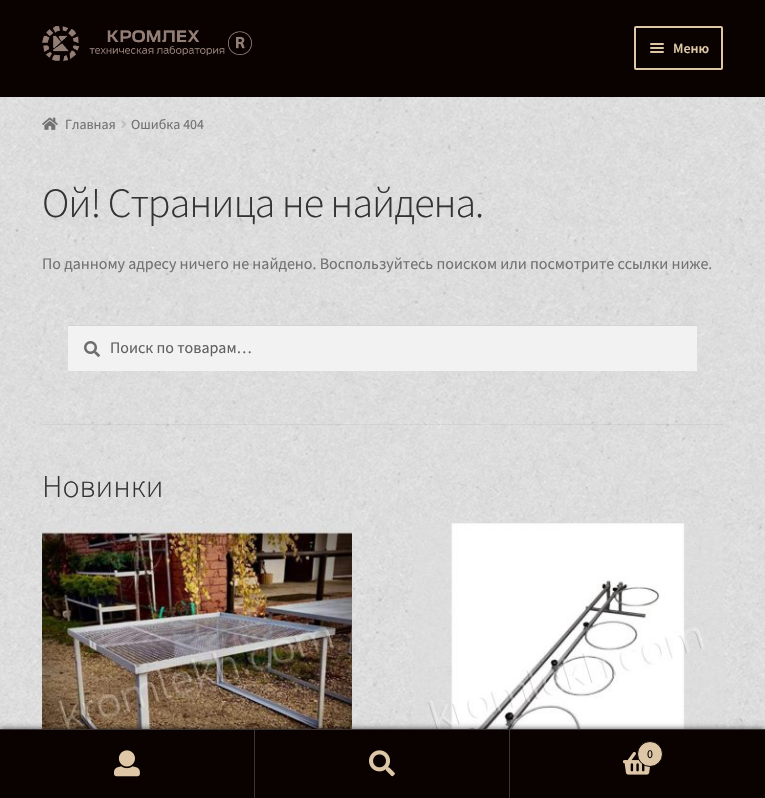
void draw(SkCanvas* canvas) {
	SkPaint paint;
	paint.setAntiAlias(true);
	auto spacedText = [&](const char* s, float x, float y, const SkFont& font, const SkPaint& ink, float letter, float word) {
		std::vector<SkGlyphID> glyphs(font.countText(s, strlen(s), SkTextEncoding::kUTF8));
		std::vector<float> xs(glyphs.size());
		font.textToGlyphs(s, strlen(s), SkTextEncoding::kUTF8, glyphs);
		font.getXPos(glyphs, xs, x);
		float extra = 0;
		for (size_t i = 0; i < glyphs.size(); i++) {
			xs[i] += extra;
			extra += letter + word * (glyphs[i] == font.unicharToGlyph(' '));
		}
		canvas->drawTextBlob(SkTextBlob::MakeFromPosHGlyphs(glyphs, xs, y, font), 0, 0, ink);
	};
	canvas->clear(0xffffffff);
	canvas->drawImageRect(SkImages::DeferredFromEncodedData(SkData::MakeFromFileName("img1.png")), SkRect::MakeXYWH(0, 97, 765, 632), SkSamplingOptions());
	paint.setColor(0xff0a0101);
	canvas->drawRect(SkRect::MakeXYWH(0, 0, 765, 97), paint);
	canvas->drawImageRect(SkImages::DeferredFromEncodedData(SkData::MakeFromFileName("img2.png")), SkRect::MakeXYWH(42, 26, 210, 35), SkSamplingOptions());
	paint.setStroke(true);
	paint.setStrokeWidth(2);
	paint.setColor(0xffddc7a6);
	canvas->drawRoundRect(SkRect::MakeXYWH(635, 27, 87, 42), 1, 1, paint);
	paint.setStroke(false);
	canvas->drawRoundRect(SkRect::MakeXYWH(650, 43, 14, 2), 1, 1, paint);
	canvas->drawRoundRect(SkRect::MakeXYWH(650, 47, 14, 2), 1, 1, paint);
	SkFont f1(fontMgr->matchFamilyStyle("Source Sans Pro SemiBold", SkFontStyle(600, SkFontStyle::kNormal_Width, SkFontStyle::kUpright_Slant)), 14);
	f1.setSubpixel(true);
	canvas->drawString("Меню", 673, 53, f1, paint);
	canvas->drawRoundRect(SkRect::MakeXYWH(650, 51, 14, 2), 1, 1, paint);
	canvas->drawImageRect(SkImages::DeferredFromEncodedData(SkData::MakeFromFileName("img3.png")), SkRect::MakeXYWH(42, 117, 16, 13), SkSamplingOptions());
	SkFont f2(fontMgr->matchFamilyStyle("Source Sans Pro", SkFontStyle::Normal()), 14);
	f2.setSubpixel(true);
	paint.setColor(0xff727272);
	canvas->drawString("Главная", 65, 129, f2, paint);
	canvas->drawImageRect(SkImages::DeferredFromEncodedData(SkData::MakeFromFileName("img4.png")), SkRect::MakeXYWH(121, 120, 6, 8), SkSamplingOptions());
	canvas->drawString("Ошибка 404", 131, 129, f2, paint);
	SkFont f3(fontMgr->matchFamilyStyle("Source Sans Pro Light", SkFontStyle(300, SkFontStyle::kNormal_Width, SkFontStyle::kUpright_Slant)), 41.9);
	f3.setSubpixel(true);
	paint.setColor(0xff333333);
	spacedText("Ой! Страница не найдена.", 42, 217, f3, paint, -1, 0);
	SkFont f4(fontMgr->matchFamilyStyle("Source Sans Pro", SkFontStyle::Normal()), 16);
	f4.setSubpixel(true);
	paint.setColor(0xff727272);
	canvas->drawString("По данному адресу ничего не найдено. Воспользуйтесь поиском или посмотрите ссылки ниже.", 42, 269, f4, paint);
	paint.setColor(0xfff2f2f2);
	canvas->drawRect(SkRect::MakeXYWH(68, 326, 629, 45), paint);
	canvas->drawImageRect(SkImages::DeferredFromEncodedData(SkData::MakeFromFileName("img5.png")), SkRect::MakeXYWH(84, 341, 16, 16), SkSamplingOptions());
	paint.setColor(0xffd4d4d4);
	canvas->drawRect(SkRect::MakeXYWH(68, 325, 629, 1), paint);
	paint.setColor(0xff616161);
	canvas->drawString("Поиск по товарам…", 110, 353, f4, paint);
	paint.setColor(0x0d000000);
	canvas->drawRect(SkRect::MakeXYWH(42, 424, 681, 1), paint);
	SkFont f5(fontMgr->matchFamilyStyle("Source Sans Pro Light", SkFontStyle(300, SkFontStyle::kNormal_Width, SkFontStyle::kUpright_Slant)), 32);
	f5.setSubpixel(true);
	paint.setColor(0xff333333);
	canvas->drawString("Новинки", 42, 497, f5, paint);
	canvas->drawImageRect(SkImages::DeferredFromEncodedData(SkData::MakeFromFileName("img6.png")), SkRect::MakeXYWH(42, 523, 310, 206), SkSamplingOptions());
	canvas->drawImageRect(SkImages::DeferredFromEncodedData(SkData::MakeFromFileName("img7.png")), SkRect::MakeXYWH(413, 523, 310, 206), SkSamplingOptions());
	paint.setColor(0xb3000000);
	paint.setMaskFilter(SkMaskFilter::MakeBlur(kNormal_SkBlurStyle, 3));
	canvas->drawRect(SkRect::MakeXYWH(0, 729, 765, 69), paint);
	paint.setMaskFilter(nullptr);
	paint.setColor(0xff3b3434);
	canvas->drawRect(SkRect::MakeXYWH(0, 729, 765, 1), paint);
	paint.setColor(0xff0a0101);
	canvas->drawRect(SkRect::MakeXYWH(0, 730, 254, 68), paint);
	paint.setColor(0xff3b3434);
	canvas->drawRect(SkRect::MakeXYWH(254, 730, 1, 68), paint);
	canvas->drawImageRect(SkImages::DeferredFromEncodedData(SkData::MakeFromFileName("img8.png")), SkRect::MakeXYWH(114, 750, 26, 27), SkSamplingOptions());
	paint.setColor(0xff0a0101);
	canvas->drawRect(SkRect::MakeXYWH(255, 730, 254, 68), paint);
	paint.setColor(0xff3b3434);
	canvas->drawRect(SkRect::MakeXYWH(509, 730, 1, 68), paint);
	canvas->drawImageRect(SkImages::DeferredFromEncodedData(SkData::MakeFromFileName("img9.png")), SkRect::MakeXYWH(369, 750, 26, 27), SkSamplingOptions());
	paint.setColor(0xff0a0101);
	canvas->drawRect(SkRect::MakeXYWH(510, 730, 255, 68), paint);
	canvas->drawImageRect(SkImages::DeferredFromEncodedData(SkData::MakeFromFileName("img10.png")), SkRect::MakeXYWH(623, 752, 28, 23), SkSamplingOptions());
	paint.setColor(0xffddc7a6);
	canvas->drawCircle(650, 754, 12.5, paint);
	paint.setStroke(true);
	paint.setStrokeWidth(1);
	paint.setColor(0xff0a0101);
	canvas->drawCircle(650, 754, 12.5, paint);
	SkFont f6(fontMgr->matchFamilyStyle("Source Sans Pro", SkFontStyle::Normal()), 12);
	f6.setSubpixel(true);
	paint.setStroke(false);
	canvas->drawString("0", 647, 758, f6, paint);
}
